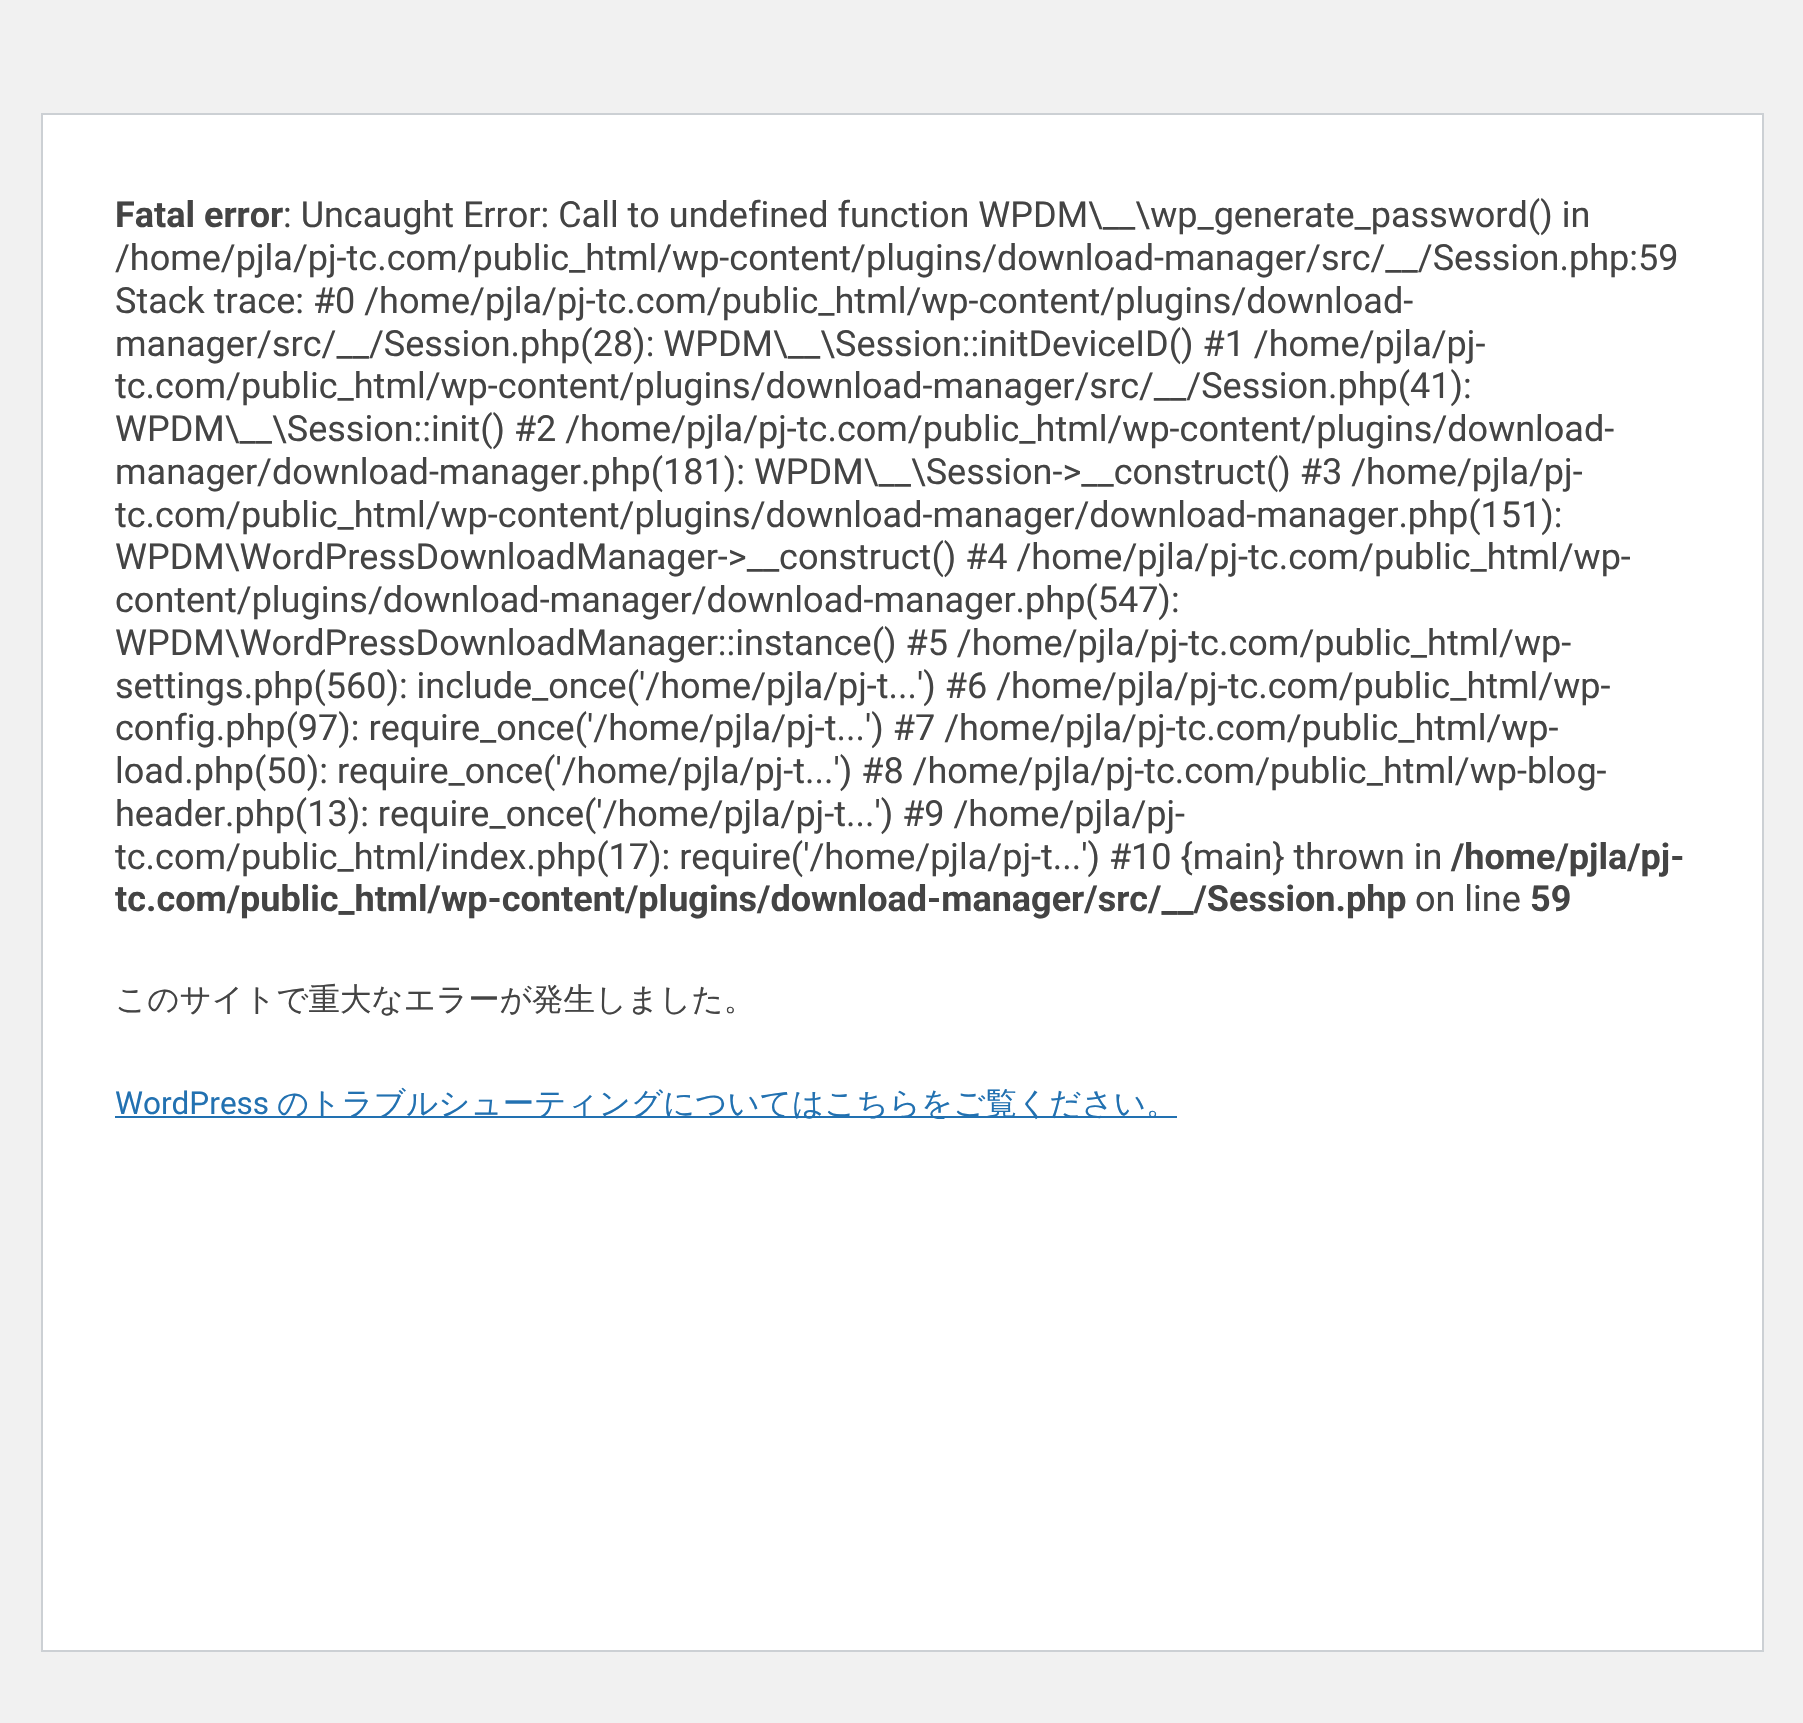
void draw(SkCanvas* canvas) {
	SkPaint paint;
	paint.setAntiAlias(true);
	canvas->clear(0xfff1f1f1);
	paint.setColor(0xffffffff);
	canvas->drawRect(SkRect::MakeXYWH(42, 114, 1721, 1537), paint);
	paint.setStroke(true);
	paint.setStrokeWidth(2);
	paint.setColor(0xffccd0d4);
	canvas->drawRect(SkRect::MakeXYWH(42, 114, 1721, 1537), paint);
	SkFont f1(fontMgr->matchFamilyStyle("Roboto", SkFontStyle::Bold()), 36);
	f1.setSubpixel(true);
	paint.setStroke(false);
	paint.setColor(0xff444444);
	canvas->drawString("Fatal error", 115, 227, f1, paint);
	SkFont f2(fontMgr->matchFamilyStyle("Roboto", SkFontStyle::Normal()), 36);
	f2.setSubpixel(true);
	canvas->drawString(": Uncaught Error: Call to undefined function WPDM\\__\\wp_generate_password() in", 283, 227, f2, paint);
	canvas->drawString("/home/pjla/pj-tc.com/public_html/wp-content/plugins/download-manager/src/__/Session.php:59", 115, 270, f2, paint);
	canvas->drawString("Stack trace: #0 /home/pjla/pj-tc.com/public_html/wp-content/plugins/download-", 115, 313, f2, paint);
	canvas->drawString("manager/src/__/Session.php(28): WPDM\\__\\Session::initDeviceID() #1 /home/pjla/pj-", 115, 356, f2, paint);
	canvas->drawString("tc.com/public_html/wp-content/plugins/download-manager/src/__/Session.php(41):", 115, 398, f2, paint);
	canvas->drawString("WPDM\\__\\Session::init() #2 /home/pjla/pj-tc.com/public_html/wp-content/plugins/download-", 115, 441, f2, paint);
	canvas->drawString("manager/download-manager.php(181): WPDM\\__\\Session->__construct() #3 /home/pjla/pj-", 115, 484, f2, paint);
	canvas->drawString("tc.com/public_html/wp-content/plugins/download-manager/download-manager.php(151):", 115, 527, f2, paint);
	canvas->drawString("WPDM\\WordPressDownloadManager->__construct() #4 /home/pjla/pj-tc.com/public_html/wp-", 115, 569, f2, paint);
	canvas->drawString("content/plugins/download-manager/download-manager.php(547):", 115, 612, f2, paint);
	canvas->drawString("WPDM\\WordPressDownloadManager::instance() #5 /home/pjla/pj-tc.com/public_html/wp-", 115, 655, f2, paint);
	canvas->drawString("settings.php(560): include_once('/home/pjla/pj-t...') #6 /home/pjla/pj-tc.com/public_html/wp-", 115, 698, f2, paint);
	canvas->drawString("config.php(97): require_once('/home/pjla/pj-t...') #7 /home/pjla/pj-tc.com/public_html/wp-", 115, 740, f2, paint);
	canvas->drawString("load.php(50): require_once('/home/pjla/pj-t...') #8 /home/pjla/pj-tc.com/public_html/wp-blog-", 115, 783, f2, paint);
	canvas->drawString("header.php(13): require_once('/home/pjla/pj-t...') #9 /home/pjla/pj-", 115, 826, f2, paint);
	canvas->drawString("tc.com/public_html/index.php(17): require('/home/pjla/pj-t...') #10 {main} thrown in", 115, 869, f2, paint);
	canvas->drawString("/home/pjla/pj-", 1451, 869, f1, paint);
	canvas->drawString("tc.com/public_html/wp-content/plugins/download-manager/src/__/Session.php", 115, 911, f1, paint);
	canvas->drawString("on line", 1415, 911, f2, paint);
	canvas->drawString("59", 1530, 911, f1, paint);
	SkFont f3(fontMgr->matchFamilyStyle("WenQuanYi Zen Hei", SkFontStyle(500, SkFontStyle::kNormal_Width, SkFontStyle::kUpright_Slant)), 31.5);
	f3.setSubpixel(true);
	canvas->drawString("このサイトで重大なエラーが発生しました。", 115, 1010, f3, paint);
	SkFont f4(fontMgr->matchFamilyStyle("Roboto", SkFontStyle::Normal()), 31.5);
	f4.setSubpixel(true);
	paint.setColor(0xff2271b1);
	canvas->drawString("WordPress", 115, 1114, f4, paint);
	canvas->drawRect(SkRect::MakeXYWH(115, 1116, 1062, 2), paint);
	canvas->drawString("のトラブルシューティングについてはこちらをご覧ください。", 277, 1114, f3, paint);
}
